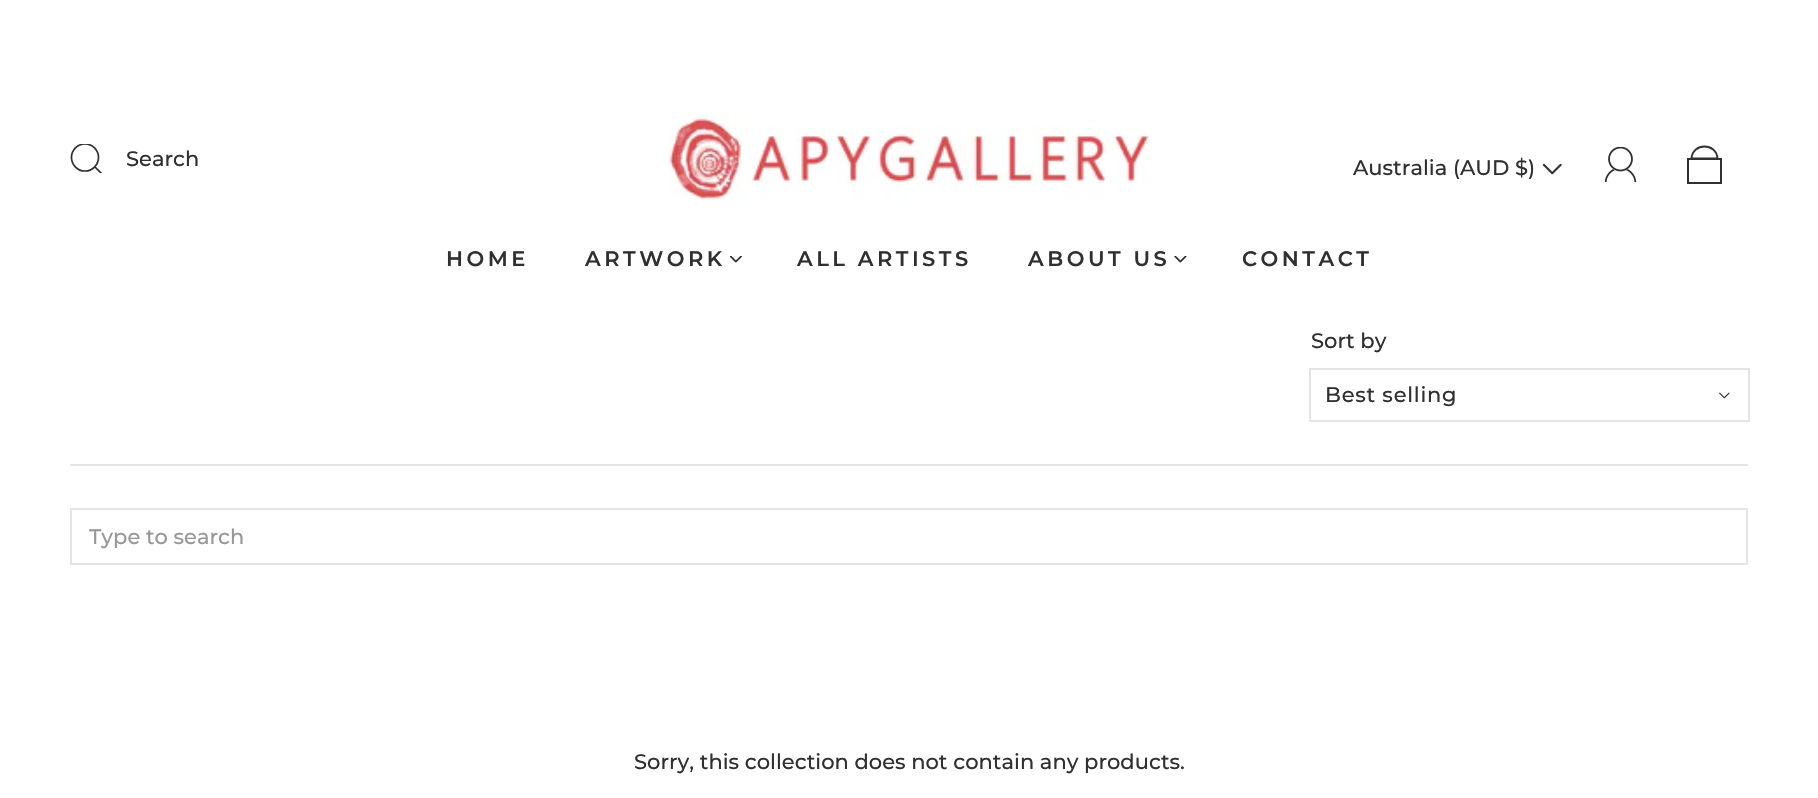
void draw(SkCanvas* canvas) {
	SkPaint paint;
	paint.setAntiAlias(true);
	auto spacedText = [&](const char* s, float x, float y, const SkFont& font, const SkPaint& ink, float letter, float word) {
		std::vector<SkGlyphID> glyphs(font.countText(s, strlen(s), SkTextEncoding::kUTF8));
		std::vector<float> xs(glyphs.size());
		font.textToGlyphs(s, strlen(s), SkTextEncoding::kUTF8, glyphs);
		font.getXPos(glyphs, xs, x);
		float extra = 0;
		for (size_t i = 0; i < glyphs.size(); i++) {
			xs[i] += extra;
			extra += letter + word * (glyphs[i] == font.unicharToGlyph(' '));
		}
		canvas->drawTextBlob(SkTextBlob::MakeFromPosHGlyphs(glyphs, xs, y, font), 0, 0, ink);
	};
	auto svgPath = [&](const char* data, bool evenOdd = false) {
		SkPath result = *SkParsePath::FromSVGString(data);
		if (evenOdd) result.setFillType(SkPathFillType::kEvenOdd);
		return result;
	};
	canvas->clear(0xffffffff);
	canvas->save();
	canvas->clipRect(SkRect::MakeXYWH(70, 144, 32, 29));
	paint.setStroke(true);
	paint.setStrokeWidth(1.7);
	paint.setColor(0xff303030);
	canvas->drawCircle(85, 157.5, 13.5, paint);
	canvas->drawPath(svgPath("M94.5 166.5L104 176"), paint);
	canvas->restore();
	SkFont f1(fontMgr->matchFamilyStyle("Montserrat", SkFontStyle(500, SkFontStyle::kNormal_Width, SkFontStyle::kUpright_Slant)), 21);
	f1.setSubpixel(true);
	paint.setStroke(false);
	canvas->drawString("Search", 126, 166, f1, paint);
	canvas->drawImageRect(SkImages::DeferredFromEncodedData(SkData::MakeFromFileName("img1.png")), SkRect::MakeXYWH(669, 114, 484, 86), SkSamplingOptions());
	canvas->drawString("Australia (AUD $)", 1353, 175, f1, paint);
	canvas->drawImageRect(SkImages::DeferredFromEncodedData(SkData::MakeFromFileName("img2.png")), SkRect::MakeXYWH(1542, 163, 20, 12), SkSamplingOptions());
	canvas->drawImageRect(SkImages::DeferredFromEncodedData(SkData::MakeFromFileName("img3.png")), SkRect::MakeXYWH(1605, 147, 32, 35), SkSamplingOptions());
	paint.setStroke(true);
	paint.setStrokeWidth(1.8);
	canvas->drawPath(svgPath("M1691.5 158.5C1692.5 142.5 1716.5 142.5 1717.5 158.5Z"), paint);
	paint.setStrokeWidth(2);
	canvas->drawRect(SkRect::MakeXYWH(1688, 159, 33, 24), paint);
	SkFont f2(fontMgr->matchFamilyStyle("Montserrat", SkFontStyle(600, SkFontStyle::kNormal_Width, SkFontStyle::kUpright_Slant)), 21);
	f2.setSubpixel(true);
	paint.setStroke(false);
	spacedText("HOME", 446, 266, f2, paint, 3.5, 0);
	spacedText("ARTWORK", 585, 266, f2, paint, 3.5, 0);
	canvas->drawImageRect(SkImages::DeferredFromEncodedData(SkData::MakeFromFileName("img4.png")), SkRect::MakeXYWH(730, 256, 12, 7), SkSamplingOptions());
	spacedText("ALL ARTISTS", 797, 266, f2, paint, 3.5, 0);
	spacedText("ABOUT US", 1028, 266, f2, paint, 3.5, 0);
	canvas->drawImageRect(SkImages::DeferredFromEncodedData(SkData::MakeFromFileName("img5.png")), SkRect::MakeXYWH(1174, 256, 13, 7), SkSamplingOptions());
	spacedText("CONTACT", 1242, 266, f2, paint, 3.5, 0);
	paint.setColor(0xffe4e4e4);
	canvas->drawRect(SkRect::MakeXYWH(70, 464, 1678, 2), paint);
	paint.setColor(0xff303030);
	canvas->drawString("Sort by", 1311, 348, f1, paint);
	paint.setStroke(true);
	paint.setColor(0xffe4e4e4);
	canvas->drawRect(SkRect::MakeXYWH(1310, 369, 439, 52), paint);
	paint.setStroke(false);
	paint.setColor(0xff303030);
	spacedText("Best selling", 1325, 402, f1, paint, 0.75, 0);
	canvas->drawImageRect(SkImages::DeferredFromEncodedData(SkData::MakeFromFileName("img6.png")), SkRect::MakeXYWH(1719, 392, 11, 7), SkSamplingOptions());
	paint.setStroke(true);
	paint.setColor(0xffe4e4e4);
	canvas->drawRect(SkRect::MakeXYWH(71, 509, 1676, 55), paint);
	paint.setStroke(false);
	paint.setColor(0xff989898);
	canvas->drawString("Type to search", 89, 544, f1, paint);
	paint.setColor(0xff303030);
	canvas->drawString("Sorry, this collection does not contain any products.", 634, 769, f1, paint);
}
